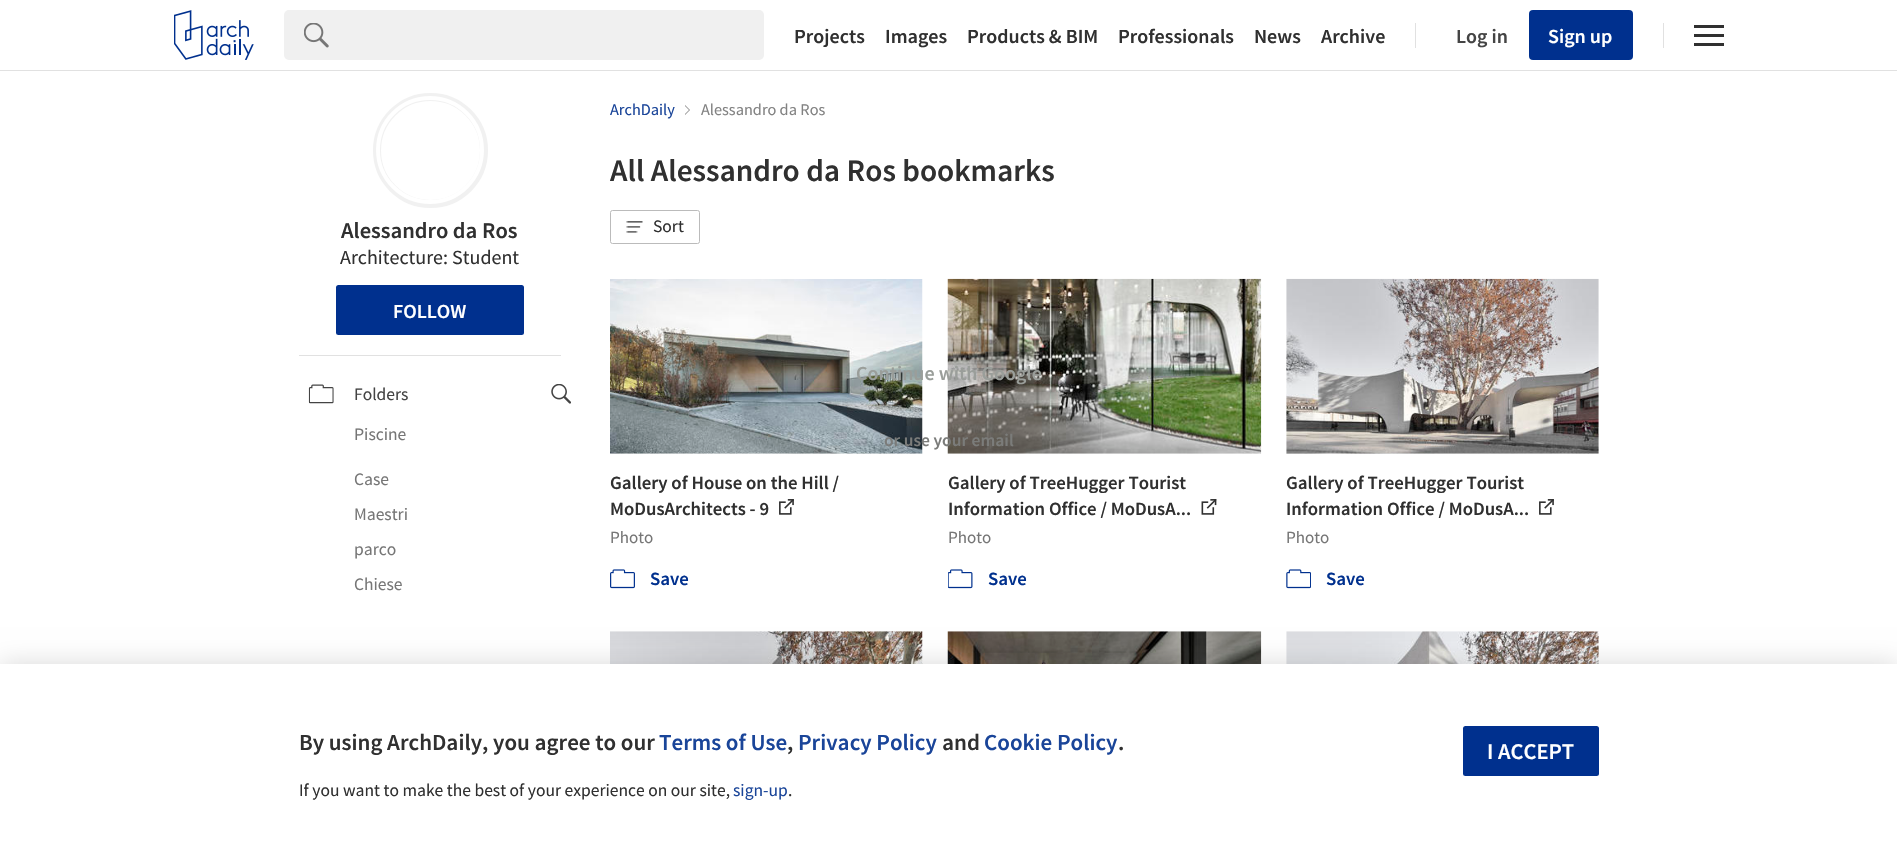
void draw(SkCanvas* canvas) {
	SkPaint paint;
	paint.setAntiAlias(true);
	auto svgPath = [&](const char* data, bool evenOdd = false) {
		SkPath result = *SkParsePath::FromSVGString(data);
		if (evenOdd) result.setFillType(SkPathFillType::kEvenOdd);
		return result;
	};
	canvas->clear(0xffffffff);
	paint.setColor(0xffe1e1e1);
	canvas->drawRect(SkRect::MakeXYWH(0, 70, 1897, 1), paint);
	canvas->drawImageRect(SkImages::DeferredFromEncodedData(SkData::MakeFromFileName("img1.png")), SkRect::MakeXYWH(174, 10, 80, 50), SkSamplingOptions());
	paint.setColor(0xfff0f0f0);
	canvas->drawRoundRect(SkRect::MakeXYWH(284, 10, 480, 50), 5, 5, paint);
	canvas->drawImageRect(SkImages::DeferredFromEncodedData(SkData::MakeFromFileName("img2.png")), SkRect::MakeXYWH(304, 23, 25, 25), SkSamplingOptions());
	SkFont f1(fontMgr->matchFamilyStyle("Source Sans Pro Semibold", SkFontStyle(600, SkFontStyle::kNormal_Width, SkFontStyle::kUpright_Slant)), 20);
	f1.setSubpixel(true);
	paint.setColor(0xff303030);
	canvas->drawString("Projects", 794, 43, f1, paint);
	canvas->drawString("Images", 885, 43, f1, paint);
	canvas->drawString("Products & BIM", 967, 43, f1, paint);
	canvas->drawString("Professionals", 1118, 43, f1, paint);
	canvas->drawString("News", 1254, 43, f1, paint);
	canvas->drawString("Archive", 1321, 43, f1, paint);
	paint.setColor(0xffe1e1e1);
	canvas->drawRect(SkRect::MakeXYWH(1415, 23, 1, 25), paint);
	paint.setColor(0xff444444);
	canvas->drawString("Log in", 1456, 43, f1, paint);
	paint.setColor(0xff00308e);
	canvas->drawRoundRect(SkRect::MakeXYWH(1529, 10, 104, 50), 4, 4, paint);
	paint.setColor(0xffffffff);
	canvas->drawString("Sign up", 1548, 43, f1, paint);
	paint.setColor(0xffe1e1e1);
	canvas->drawRect(SkRect::MakeXYWH(1663, 23, 1, 25), paint);
	paint.setColor(0xff303030);
	canvas->drawRect(SkRect::MakeXYWH(1694, 34, 30, 3), paint);
	canvas->drawRect(SkRect::MakeXYWH(1694, 25, 30, 3), paint);
	canvas->drawRect(SkRect::MakeXYWH(1694, 43, 30, 3), paint);
	canvas->drawImageRect(SkImages::DeferredFromEncodedData(SkData::MakeFromFileName("img14.png")), SkRect::MakeXYWH(610, 631, 313, 33), SkSamplingOptions());
	canvas->drawImageRect(SkImages::DeferredFromEncodedData(SkData::MakeFromFileName("img15.png")), SkRect::MakeXYWH(947, 631, 315, 33), SkSamplingOptions());
	canvas->drawImageRect(SkImages::DeferredFromEncodedData(SkData::MakeFromFileName("img16.png")), SkRect::MakeXYWH(1286, 631, 313, 33), SkSamplingOptions());
	paint.setColor(0x26000000);
	paint.setMaskFilter(SkMaskFilter::MakeBlur(kNormal_SkBlurStyle, 12.5));
	canvas->drawRect(SkRect::MakeXYWH(0, 664, 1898, 197), paint);
	paint.setMaskFilter(nullptr);
	paint.setColor(0xffffffff);
	canvas->drawRect(SkRect::MakeXYWH(0, 664, 1897, 197), paint);
	SkFont f2(fontMgr->matchFamilyStyle("Source Sans Pro Semibold", SkFontStyle(600, SkFontStyle::kNormal_Width, SkFontStyle::kUpright_Slant)), 23);
	f2.setSubpixel(true);
	paint.setColor(0xff303030);
	canvas->drawString("By using ArchDaily, you agree to our", 299, 750, f2, paint);
	paint.setColor(0xff1a4599);
	canvas->drawString("Terms of Use", 659, 750, f2, paint);
	paint.setColor(0xff303030);
	canvas->drawString(",", 787, 750, f2, paint);
	paint.setColor(0xff1a4599);
	canvas->drawString("Privacy Policy", 798, 750, f2, paint);
	paint.setColor(0xff303030);
	canvas->drawString("and", 942, 750, f2, paint);
	paint.setColor(0xff1a4599);
	canvas->drawString("Cookie Policy", 984, 750, f2, paint);
	paint.setColor(0xff303030);
	canvas->drawString(".", 1118, 750, f2, paint);
	SkFont f3(fontMgr->matchFamilyStyle("Source Sans Pro", SkFontStyle::Normal()), 17.5);
	f3.setSubpixel(true);
	canvas->drawString("If you want to make the best of your experience on our site,", 299, 796, f3, paint);
	paint.setColor(0xff1a4599);
	canvas->drawString("sign-up", 733, 796, f3, paint);
	paint.setColor(0xff303030);
	canvas->drawString(".", 788, 796, f3, paint);
	paint.setColor(0xff00308e);
	canvas->drawRoundRect(SkRect::MakeXYWH(1463, 726, 136, 50), 2.5, 2.5, paint);
	SkFont f4(fontMgr->matchFamilyStyle("Source Sans Pro Semibold", SkFontStyle(600, SkFontStyle::kNormal_Width, SkFontStyle::kUpright_Slant)), 22.5);
	f4.setSubpixel(true);
	paint.setColor(0xffffffff);
	canvas->drawString("I ACCEPT", 1487, 759, f4, paint);
	paint.setStroke(true);
	paint.setStrokeWidth(8);
	paint.setColor(0xfff1f1f1);
	canvas->drawCircle(430.5, 150.5, 53.5, paint);
	paint.setStrokeWidth(4);
	paint.setColor(0xffffffff);
	canvas->drawCircle(430, 150, 52, paint);
	paint.setStroke(false);
	paint.setColor(0xff303030);
	canvas->drawString("Alessandro da Ros", 341, 238, f4, paint);
	SkFont f5(fontMgr->matchFamilyStyle("Source Sans Pro", SkFontStyle::Normal()), 20);
	f5.setSubpixel(true);
	canvas->drawString("Architecture: Student", 340, 264, f5, paint);
	paint.setColor(0xff00308e);
	canvas->drawRoundRect(SkRect::MakeXYWH(336, 285, 188, 50), 2.5, 2.5, paint);
	paint.setColor(0xffffffff);
	canvas->drawString("FOLLOW", 393, 318, f1, paint);
	paint.setColor(0xffe1e1e1);
	canvas->drawRect(SkRect::MakeXYWH(299, 355, 262, 1), paint);
	canvas->drawImageRect(SkImages::DeferredFromEncodedData(SkData::MakeFromFileName("img3.png")), SkRect::MakeXYWH(308, 384, 26, 20), SkSamplingOptions());
	paint.setColor(0xff444444);
	canvas->drawString("Folders", 354, 400, f3, paint);
	canvas->drawImageRect(SkImages::DeferredFromEncodedData(SkData::MakeFromFileName("img4.png")), SkRect::MakeXYWH(551, 384, 20, 20), SkSamplingOptions());
	paint.setColor(0xff767676);
	canvas->drawString("Piscine", 354, 440, f3, paint);
	canvas->drawString("Case", 354, 485, f3, paint);
	canvas->drawString("Maestri", 354, 520, f3, paint);
	canvas->drawString("parco", 354, 555, f3, paint);
	canvas->drawString("Chiese", 354, 590, f3, paint);
	SkFont f6(fontMgr->matchFamilyStyle("Source Sans Pro", SkFontStyle::Normal()), 16.25);
	f6.setSubpixel(true);
	paint.setColor(0xff1a4599);
	canvas->drawString("ArchDaily", 610, 115, f6, paint);
	paint.setColor(0xff828282);
	canvas->drawPath(svgPath("M685 115V105L690 110Z"), paint);
	paint.setColor(0xffffffff);
	canvas->drawPath(svgPath("M684 115V105L689 110Z"), paint);
	paint.setColor(0xff828282);
	canvas->drawString("Alessandro da Ros", 701, 115, f6, paint);
	SkFont f7(fontMgr->matchFamilyStyle("Source Sans Pro Semibold", SkFontStyle(600, SkFontStyle::kNormal_Width, SkFontStyle::kUpright_Slant)), 31.25);
	f7.setSubpixel(true);
	paint.setColor(0xff303030);
	canvas->drawString("All Alessandro da Ros bookmarks", 610, 181, f7, paint);
	paint.setStroke(true);
	paint.setStrokeWidth(1);
	paint.setColor(0xffbbbbbb);
	canvas->drawRoundRect(SkRect::MakeXYWH(610.5, 210.5, 89, 33), 2, 2, paint);
	canvas->drawImageRect(SkImages::DeferredFromEncodedData(SkData::MakeFromFileName("img5.png")), SkRect::MakeXYWH(626, 221, 17, 12), SkSamplingOptions());
	paint.setStroke(false);
	paint.setColor(0xff303030);
	canvas->drawString("Sort", 653, 232, f3, paint);
	canvas->drawImageRect(SkImages::DeferredFromEncodedData(SkData::MakeFromFileName("img6.png")), SkRect::MakeXYWH(610, 279, 313, 175), SkSamplingOptions());
	SkFont f8(fontMgr->matchFamilyStyle("Source Sans Pro Semibold", SkFontStyle(600, SkFontStyle::kNormal_Width, SkFontStyle::kUpright_Slant)), 18.75);
	f8.setSubpixel(true);
	canvas->drawString("Gallery of House on the Hill /", 610, 489, f8, paint);
	canvas->drawString("MoDusArchitects - 9", 610, 515, f8, paint);
	canvas->drawImageRect(SkImages::DeferredFromEncodedData(SkData::MakeFromFileName("img7.png")), SkRect::MakeXYWH(779, 499, 15, 16), SkSamplingOptions());
	SkFont f9(fontMgr->matchFamilyStyle("Source Sans Pro", SkFontStyle::Normal()), 17);
	f9.setSubpixel(true);
	paint.setColor(0xff767676);
	canvas->drawString("Photo", 610, 543, f9, paint);
	canvas->drawImageRect(SkImages::DeferredFromEncodedData(SkData::MakeFromFileName("img8.png")), SkRect::MakeXYWH(610, 569, 25, 20), SkSamplingOptions());
	paint.setColor(0xff00308e);
	canvas->drawString("Save", 650, 585, f8, paint);
	canvas->drawImageRect(SkImages::DeferredFromEncodedData(SkData::MakeFromFileName("img9.png")), SkRect::MakeXYWH(947, 278, 315, 176), SkSamplingOptions());
	paint.setColor(0xff303030);
	canvas->drawString("Gallery of TreeHugger Tourist", 948, 489, f8, paint);
	canvas->drawString("Information Office / MoDusA...", 948, 515, f8, paint);
	canvas->drawImageRect(SkImages::DeferredFromEncodedData(SkData::MakeFromFileName("img10.png")), SkRect::MakeXYWH(1201, 499, 16, 16), SkSamplingOptions());
	paint.setColor(0xff767676);
	canvas->drawString("Photo", 948, 543, f9, paint);
	canvas->drawImageRect(SkImages::DeferredFromEncodedData(SkData::MakeFromFileName("img11.png")), SkRect::MakeXYWH(948, 569, 25, 20), SkSamplingOptions());
	paint.setColor(0xff00308e);
	canvas->drawString("Save", 988, 585, f8, paint);
	canvas->drawImageRect(SkImages::DeferredFromEncodedData(SkData::MakeFromFileName("img12.png")), SkRect::MakeXYWH(1286, 278, 313, 176), SkSamplingOptions());
	paint.setColor(0xff303030);
	canvas->drawString("Gallery of TreeHugger Tourist", 1286, 489, f8, paint);
	canvas->drawString("Information Office / MoDusA...", 1286, 515, f8, paint);
	canvas->drawImageRect(SkImages::DeferredFromEncodedData(SkData::MakeFromFileName("img7.png")), SkRect::MakeXYWH(1539, 499, 15, 16), SkSamplingOptions());
	paint.setColor(0xff767676);
	canvas->drawString("Photo", 1286, 543, f9, paint);
	canvas->drawImageRect(SkImages::DeferredFromEncodedData(SkData::MakeFromFileName("img13.png")), SkRect::MakeXYWH(1286, 569, 25, 20), SkSamplingOptions());
	paint.setColor(0xff00308e);
	canvas->drawString("Save", 1326, 585, f8, paint);
	paint.setColor(0xff9a9e9a);
	canvas->drawString("Continue with Google", 856, 380, f1, paint);
	SkFont f10(fontMgr->matchFamilyStyle("Source Sans Pro Semibold", SkFontStyle(600, SkFontStyle::kNormal_Width, SkFontStyle::kUpright_Slant)), 17.5);
	f10.setSubpixel(true);
	paint.setColor(0xff7b7c7a);
	canvas->drawString("or use your email", 884, 446, f10, paint);
}
